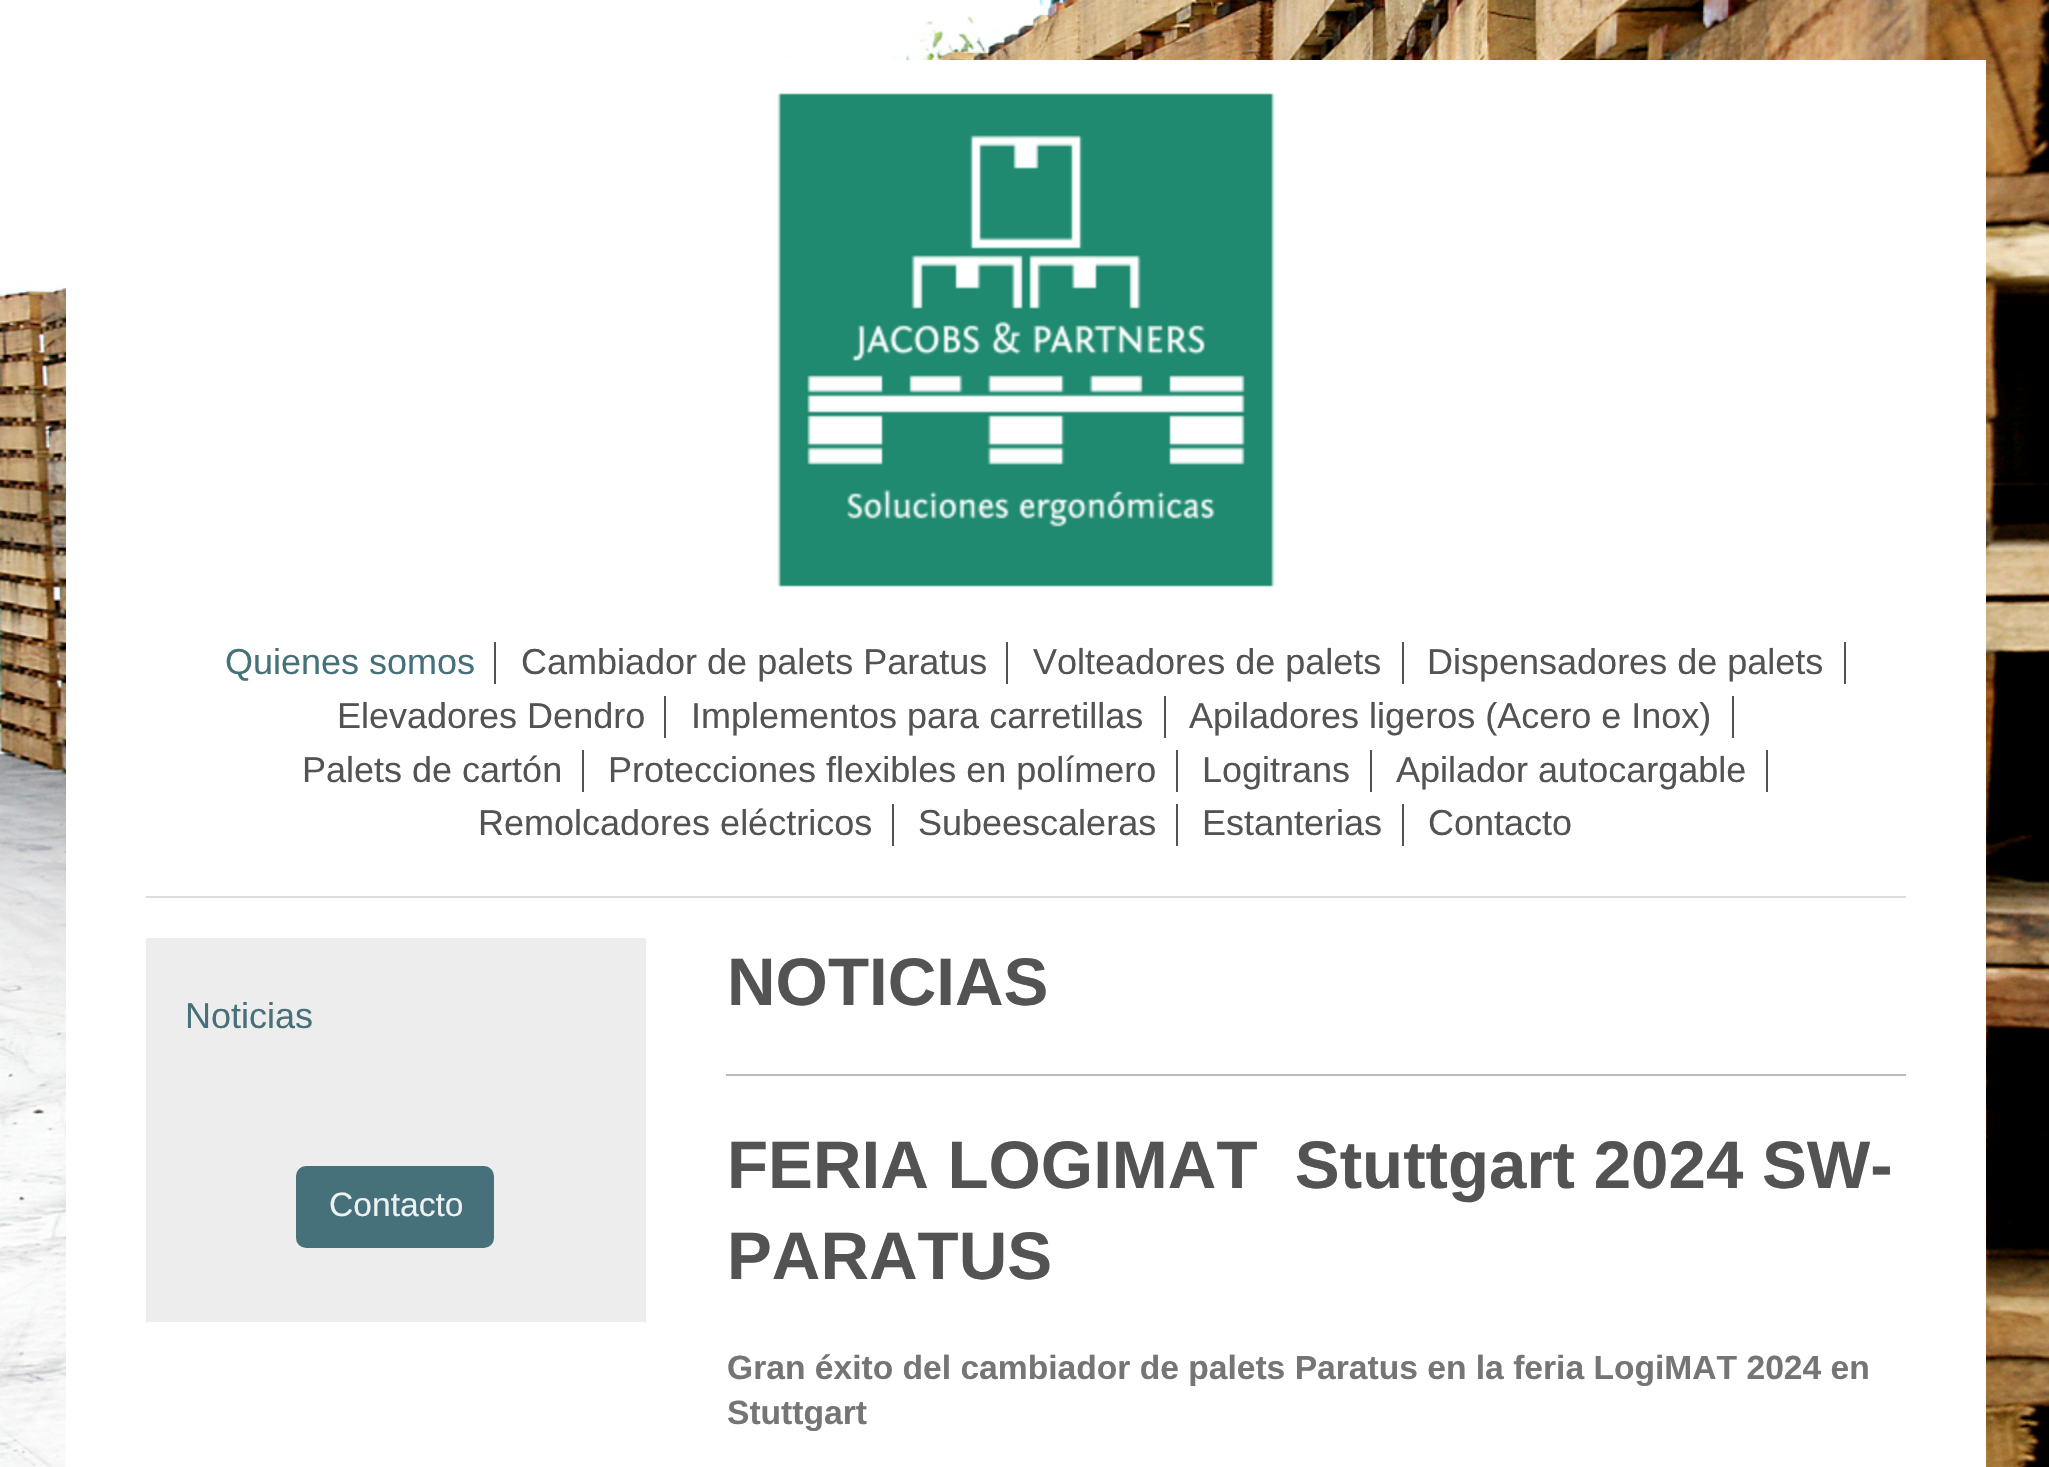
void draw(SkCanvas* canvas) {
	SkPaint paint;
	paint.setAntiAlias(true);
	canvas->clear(0xffffffff);
	canvas->drawImageRect(SkImages::DeferredFromEncodedData(SkData::MakeFromFileName("img1.png")), SkRect::MakeXYWH(0, 0, 2049, 1467), SkSamplingOptions());
	paint.setColor(0xffffffff);
	canvas->drawRect(SkRect::MakeXYWH(66, 60, 1920, 1407), paint);
	canvas->drawImageRect(SkImages::DeferredFromEncodedData(SkData::MakeFromFileName("img2.png")), SkRect::MakeXYWH(777, 93, 498, 494), SkSamplingOptions());
	paint.setColor(0xffdddddd);
	canvas->drawRect(SkRect::MakeXYWH(146, 896, 1760, 2), paint);
	paint.setColor(0xff535353);
	canvas->drawRect(SkRect::MakeXYWH(494, 642, 2, 42), paint);
	SkFont f1(fontMgr->matchFamilyStyle("Liberation Sans", SkFontStyle::Normal()), 36);
	f1.setSubpixel(true);
	paint.setColor(0xff47717a);
	canvas->drawString("Quienes somos", 225, 674, f1, paint);
	paint.setColor(0xff535353);
	canvas->drawRect(SkRect::MakeXYWH(1006, 642, 2, 42), paint);
	canvas->drawString("Cambiador de palets Paratus", 521, 674, f1, paint);
	canvas->drawRect(SkRect::MakeXYWH(1402, 642, 2, 42), paint);
	canvas->drawString("Volteadores de palets", 1033, 674, f1, paint);
	canvas->drawRect(SkRect::MakeXYWH(1844, 642, 2, 42), paint);
	canvas->drawString("Dispensadores de palets", 1427, 674, f1, paint);
	canvas->drawRect(SkRect::MakeXYWH(664, 696, 2, 42), paint);
	canvas->drawString("Elevadores Dendro", 337, 728, f1, paint);
	canvas->drawRect(SkRect::MakeXYWH(1164, 696, 2, 42), paint);
	canvas->drawString("Implementos para carretillas", 691, 728, f1, paint);
	canvas->drawRect(SkRect::MakeXYWH(1732, 696, 2, 42), paint);
	canvas->drawString("Apiladores ligeros (Acero e Inox)", 1189, 728, f1, paint);
	canvas->drawRect(SkRect::MakeXYWH(582, 750, 2, 42), paint);
	canvas->drawString("Palets de cartón", 302, 782, f1, paint);
	canvas->drawRect(SkRect::MakeXYWH(1176, 750, 2, 42), paint);
	canvas->drawString("Protecciones flexibles en polímero", 608, 782, f1, paint);
	canvas->drawRect(SkRect::MakeXYWH(1370, 750, 2, 42), paint);
	canvas->drawString("Logitrans", 1202, 782, f1, paint);
	canvas->drawRect(SkRect::MakeXYWH(1766, 750, 2, 42), paint);
	canvas->drawString("Apilador autocargable", 1396, 782, f1, paint);
	canvas->drawRect(SkRect::MakeXYWH(892, 804, 2, 42), paint);
	canvas->drawString("Remolcadores eléctricos", 478, 835, f1, paint);
	canvas->drawRect(SkRect::MakeXYWH(1176, 804, 2, 42), paint);
	canvas->drawString("Subeescaleras", 918, 835, f1, paint);
	canvas->drawRect(SkRect::MakeXYWH(1402, 804, 2, 42), paint);
	canvas->drawString("Estanterias", 1202, 835, f1, paint);
	canvas->drawString("Contacto", 1428, 835, f1, paint);
	paint.setColor(0xffededed);
	canvas->drawRect(SkRect::MakeXYWH(146, 938, 500, 384), paint);
	paint.setColor(0xff47717a);
	canvas->drawString("Noticias", 185, 1028, f1, paint);
	canvas->drawRoundRect(SkRect::MakeXYWH(297, 1167, 196, 80), 9, 9, paint);
	paint.setStroke(true);
	paint.setStrokeWidth(2);
	canvas->drawRoundRect(SkRect::MakeXYWH(297, 1167, 196, 80), 9, 9, paint);
	SkFont f2(fontMgr->matchFamilyStyle("Liberation Sans", SkFontStyle::Normal()), 33.6);
	f2.setSubpixel(true);
	paint.setStroke(false);
	paint.setColor(0xffedf1f2);
	canvas->drawString("Contacto", 329, 1216, f2, paint);
	SkFont f3(fontMgr->matchFamilyStyle("Liberation Sans", SkFontStyle::Bold()), 67.25);
	f3.setSubpixel(true);
	paint.setColor(0xff535353);
	canvas->drawString("NOTICIAS", 727, 1005, f3, paint);
	paint.setColor(0xffbababa);
	canvas->drawRect(SkRect::MakeXYWH(726, 1074, 1180, 2), paint);
	paint.setColor(0xff535353);
	canvas->drawString("FERIA LOGIMAT  Stuttgart 2024 SW-", 727, 1188, f3, paint);
	canvas->drawString("PARATUS", 727, 1279, f3, paint);
	SkFont f4(fontMgr->matchFamilyStyle("Liberation Sans", SkFontStyle::Bold()), 33.6);
	f4.setSubpixel(true);
	paint.setColor(0xff757575);
	canvas->drawString("Gran éxito del cambiador de palets Paratus en la feria LogiMAT 2024 en", 727, 1379, f4, paint);
	canvas->drawString("Stuttgart", 727, 1424, f4, paint);
}
